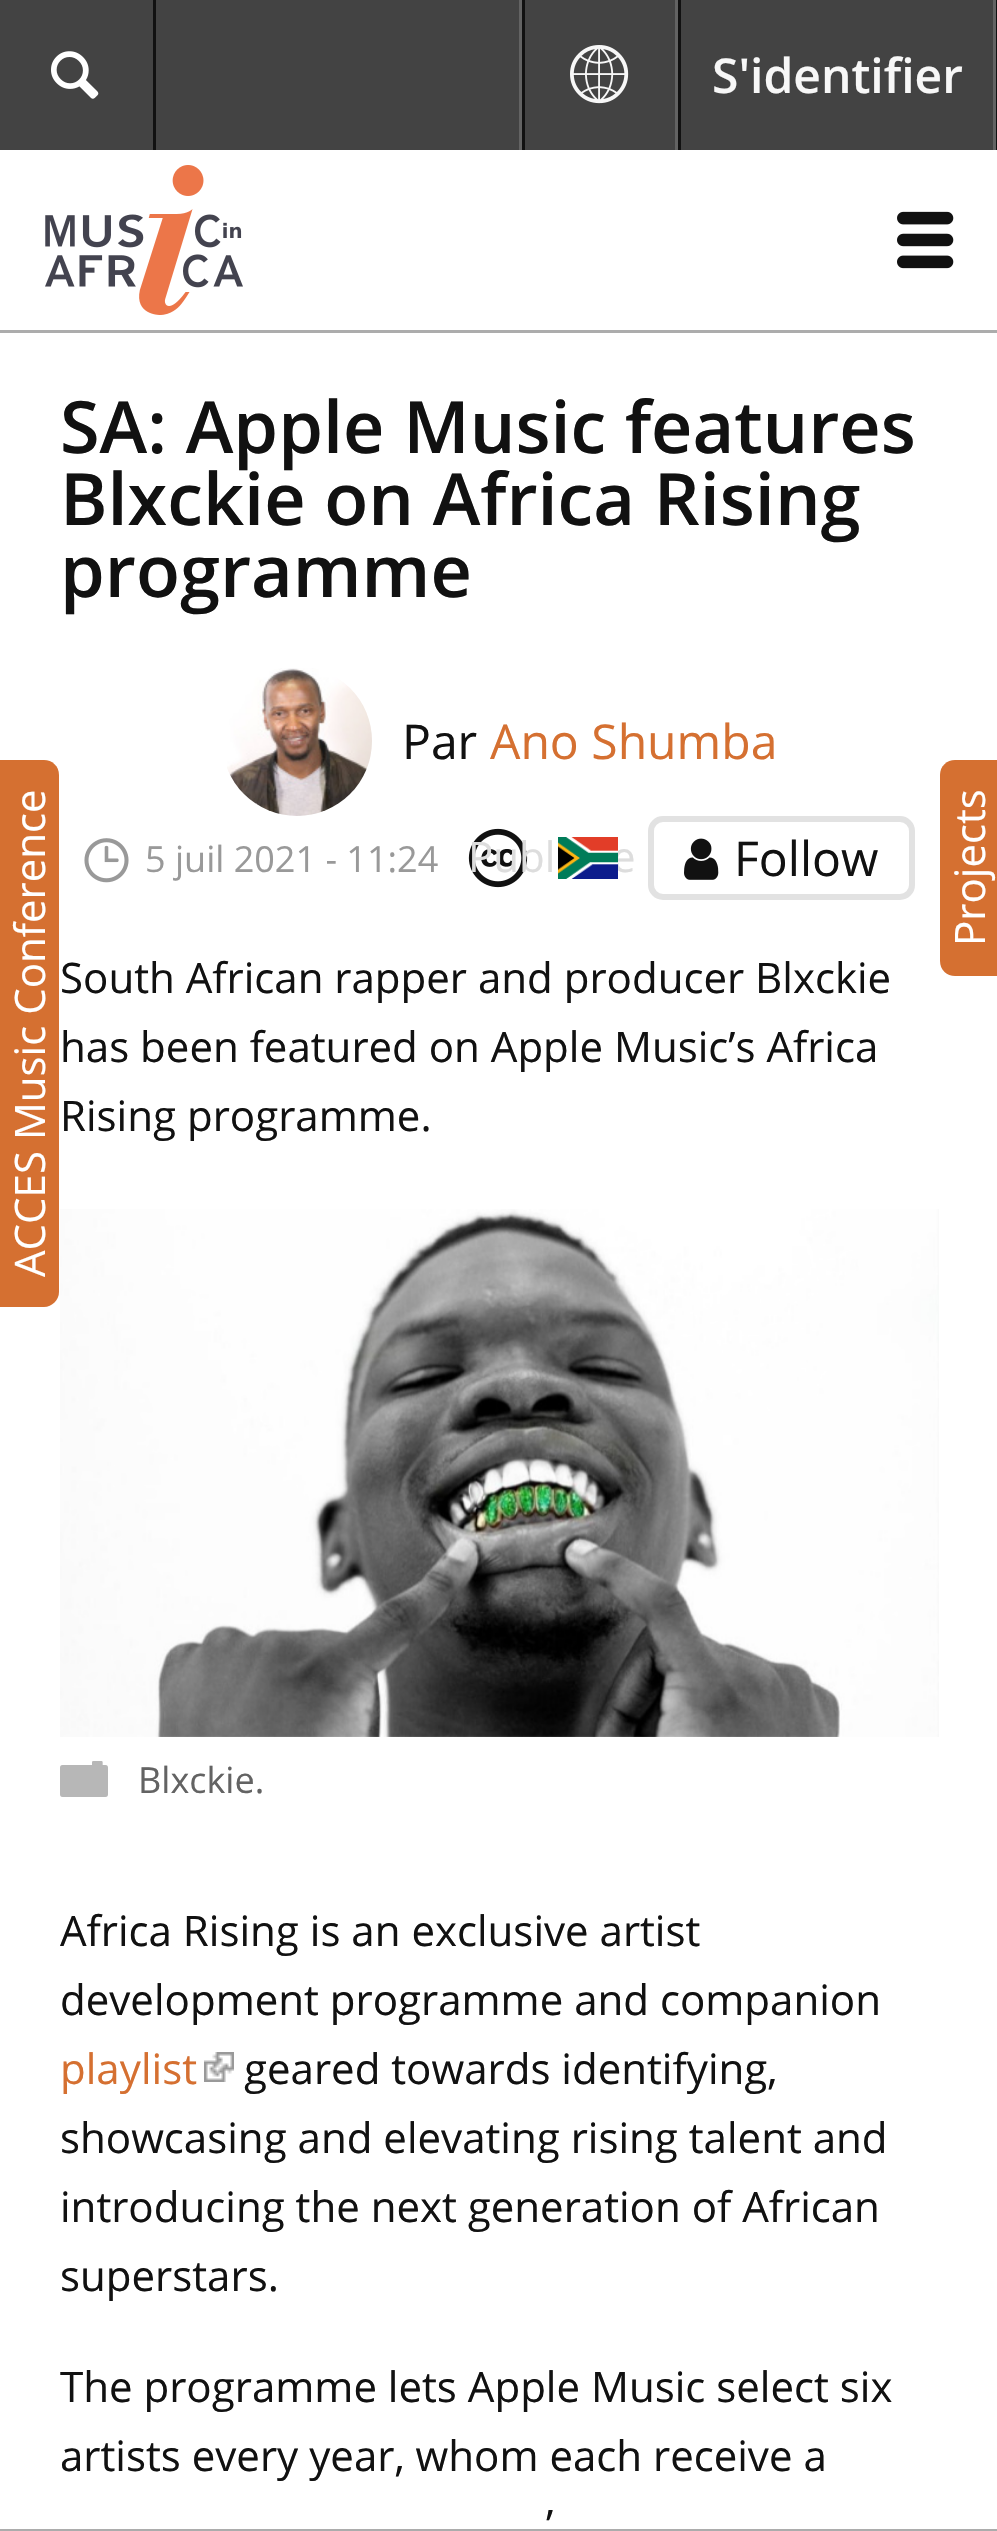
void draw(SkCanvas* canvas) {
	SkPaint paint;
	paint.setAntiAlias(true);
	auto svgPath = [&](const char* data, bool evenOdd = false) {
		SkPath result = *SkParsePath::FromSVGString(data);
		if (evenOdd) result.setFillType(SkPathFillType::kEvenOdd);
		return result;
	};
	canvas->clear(0xffffffff);
	paint.setColor(0xff434343);
	canvas->drawRect(SkRect::MakeXYWH(0, 0, 993, 150), paint);
	paint.setColor(0xff111111);
	canvas->drawRect(SkRect::MakeXYWH(153, 0, 3, 150), paint);
	canvas->drawImageRect(SkImages::DeferredFromEncodedData(SkData::MakeFromFileName("img1.png")), SkRect::MakeXYWH(51, 51, 48, 48), SkSamplingOptions());
	canvas->drawRect(SkRect::MakeXYWH(996, 0, 1, 150), paint);
	paint.setColor(0xff636363);
	canvas->drawRect(SkRect::MakeXYWH(675, 0, 3, 150), paint);
	canvas->drawRect(SkRect::MakeXYWH(519, 0, 3, 150), paint);
	paint.setColor(0xff111111);
	canvas->drawRect(SkRect::MakeXYWH(522, 0, 3, 150), paint);
	canvas->drawImageRect(SkImages::DeferredFromEncodedData(SkData::MakeFromFileName("img2.png")), SkRect::MakeXYWH(570, 45, 59, 59), SkSamplingOptions());
	paint.setColor(0xff636363);
	canvas->drawRect(SkRect::MakeXYWH(993, 0, 3, 150), paint);
	paint.setColor(0xff111111);
	canvas->drawRect(SkRect::MakeXYWH(678, 0, 3, 150), paint);
	SkFont f1(fontMgr->matchFamilyStyle("Open Sans", SkFontStyle(600, SkFontStyle::kNormal_Width, SkFontStyle::kUpright_Slant)), 48);
	f1.setSubpixel(true);
	paint.setColor(0xfff7f7f7);
	canvas->drawString("S'identifier", 712, 93, f1, paint);
	paint.setColor(0xffacacac);
	canvas->drawRect(SkRect::MakeXYWH(0, 330, 997, 3), paint);
	canvas->drawImageRect(SkImages::DeferredFromEncodedData(SkData::MakeFromFileName("img3.png")), SkRect::MakeXYWH(45, 165, 198, 150), SkSamplingOptions());
	canvas->drawImageRect(SkImages::DeferredFromEncodedData(SkData::MakeFromFileName("img4.png")), SkRect::MakeXYWH(897, 211, 57, 58), SkSamplingOptions());
	paint.setColor(0xffd57031);
	canvas->drawPath(svgPath("M0 1307V760H44C52 760 59 766 59 775V1292C59 1300 52 1307 44 1307Z"), paint);
	SkFont f2(fontMgr->matchFamilyStyle("Open Sans", SkFontStyle::Normal()), 42);
	f2.setSubpixel(true);
	paint.setColor(0xffffffff);
	canvas->save();
	canvas->rotate(-90, 45, 1277);
	canvas->drawString("ACCES Music Conference", 45, 1277, f2, paint);
	canvas->restore();
	SkFont f3(fontMgr->matchFamilyStyle("Open Sans", SkFontStyle(600, SkFontStyle::kNormal_Width, SkFontStyle::kUpright_Slant)), 72);
	f3.setSubpixel(true);
	paint.setColor(0xff111111);
	canvas->drawString("SA: Apple Music features", 60, 453, f3, paint);
	canvas->drawString("Blxckie on Africa Rising", 60, 525, f3, paint);
	canvas->drawString("programme", 60, 597, f3, paint);
	canvas->drawImageRect(SkImages::DeferredFromEncodedData(SkData::MakeFromFileName("img5.png")), SkRect::MakeXYWH(227, 668, 145, 148), SkSamplingOptions());
	SkFont f4(fontMgr->matchFamilyStyle("Open Sans", SkFontStyle::Normal()), 48);
	f4.setSubpixel(true);
	canvas->drawString("Par", 402, 759, f4, paint);
	paint.setColor(0xffd57031);
	canvas->drawString("Ano Shumba", 490, 759, f4, paint);
	paint.setColor(0xffdddddd);
	canvas->drawString("e", 612, 872, f2, paint);
	canvas->drawImageRect(SkImages::DeferredFromEncodedData(SkData::MakeFromFileName("img6.png")), SkRect::MakeXYWH(558, 837, 60, 42), SkSamplingOptions());
	paint.setStroke(true);
	paint.setStrokeWidth(6);
	paint.setColor(0xffe2e2e2);
	canvas->drawRoundRect(SkRect::MakeXYWH(651, 819, 261, 78), 12, 12, paint);
	canvas->drawImageRect(SkImages::DeferredFromEncodedData(SkData::MakeFromFileName("img7.png")), SkRect::MakeXYWH(684, 838, 35, 42), SkSamplingOptions());
	paint.setStroke(false);
	paint.setColor(0xff111111);
	canvas->drawString("Follow", 734, 876, f4, paint);
	canvas->drawImageRect(SkImages::DeferredFromEncodedData(SkData::MakeFromFileName("img8.png")), SkRect::MakeXYWH(84, 838, 45, 45), SkSamplingOptions());
	SkFont f5(fontMgr->matchFamilyStyle("Open Sans", SkFontStyle::Normal()), 36);
	f5.setSubpixel(true);
	paint.setColor(0xff999999);
	canvas->drawString("5 juil 2021 - 11:24", 145, 872, f5, paint);
	canvas->drawImageRect(SkImages::DeferredFromEncodedData(SkData::MakeFromFileName("img9.png")), SkRect::MakeXYWH(468, 828, 60, 60), SkSamplingOptions());
	paint.setColor(0xffdddddd);
	canvas->drawString("Publ", 468, 872, f2, paint);
	paint.setColor(0xff111111);
	canvas->drawString("South African rapper and producer Blxckie", 60, 993, f2, paint);
	canvas->drawString("has been featured on Apple Music’s Africa", 60, 1062, f2, paint);
	canvas->drawString("Rising programme.", 60, 1131, f2, paint);
	canvas->drawImageRect(SkImages::DeferredFromEncodedData(SkData::MakeFromFileName("img10.png")), SkRect::MakeXYWH(60, 1209, 879, 528), SkSamplingOptions());
	canvas->drawImageRect(SkImages::DeferredFromEncodedData(SkData::MakeFromFileName("img11.png")), SkRect::MakeXYWH(60, 1761, 48, 36), SkSamplingOptions());
	paint.setColor(0xff636363);
	canvas->drawString("Blxckie.", 138, 1793, f5, paint);
	paint.setColor(0xff111111);
	canvas->drawString("Africa Rising is an exclusive artist", 60, 1946, f2, paint);
	canvas->drawString("development programme and companion", 60, 2015, f2, paint);
	paint.setColor(0xffd57031);
	canvas->drawString("playlist", 60, 2084, f2, paint);
	canvas->drawImageRect(SkImages::DeferredFromEncodedData(SkData::MakeFromFileName("img12.png")), SkRect::MakeXYWH(204, 2052, 30, 30), SkSamplingOptions());
	paint.setColor(0xff111111);
	canvas->drawString("geared towards identifying,", 244, 2084, f2, paint);
	canvas->drawString("showcasing and elevating rising talent and", 60, 2153, f2, paint);
	canvas->drawString("introducing the next generation of African", 60, 2222, f2, paint);
	canvas->drawString("superstars.", 60, 2291, f2, paint);
	canvas->drawString("The programme lets Apple Music select six", 60, 2402, f2, paint);
	canvas->drawString("artists every year, whom each receive a", 60, 2471, f2, paint);
	canvas->drawString("’", 546, 2540, f2, paint);
	paint.setColor(0xffd57031);
	canvas->drawPath(svgPath("M940 961V775C940 766 947 760 955 760H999V976H955C947 976 940 970 940 961Z"), paint);
	paint.setColor(0xffffffff);
	canvas->save();
	canvas->rotate(-90, 985, 946);
	canvas->drawString("Projects", 985, 946, f2, paint);
	canvas->restore();
	paint.setColor(0xffacacac);
	canvas->drawRect(SkRect::MakeXYWH(0, 2529, 997, 2), paint);
}
